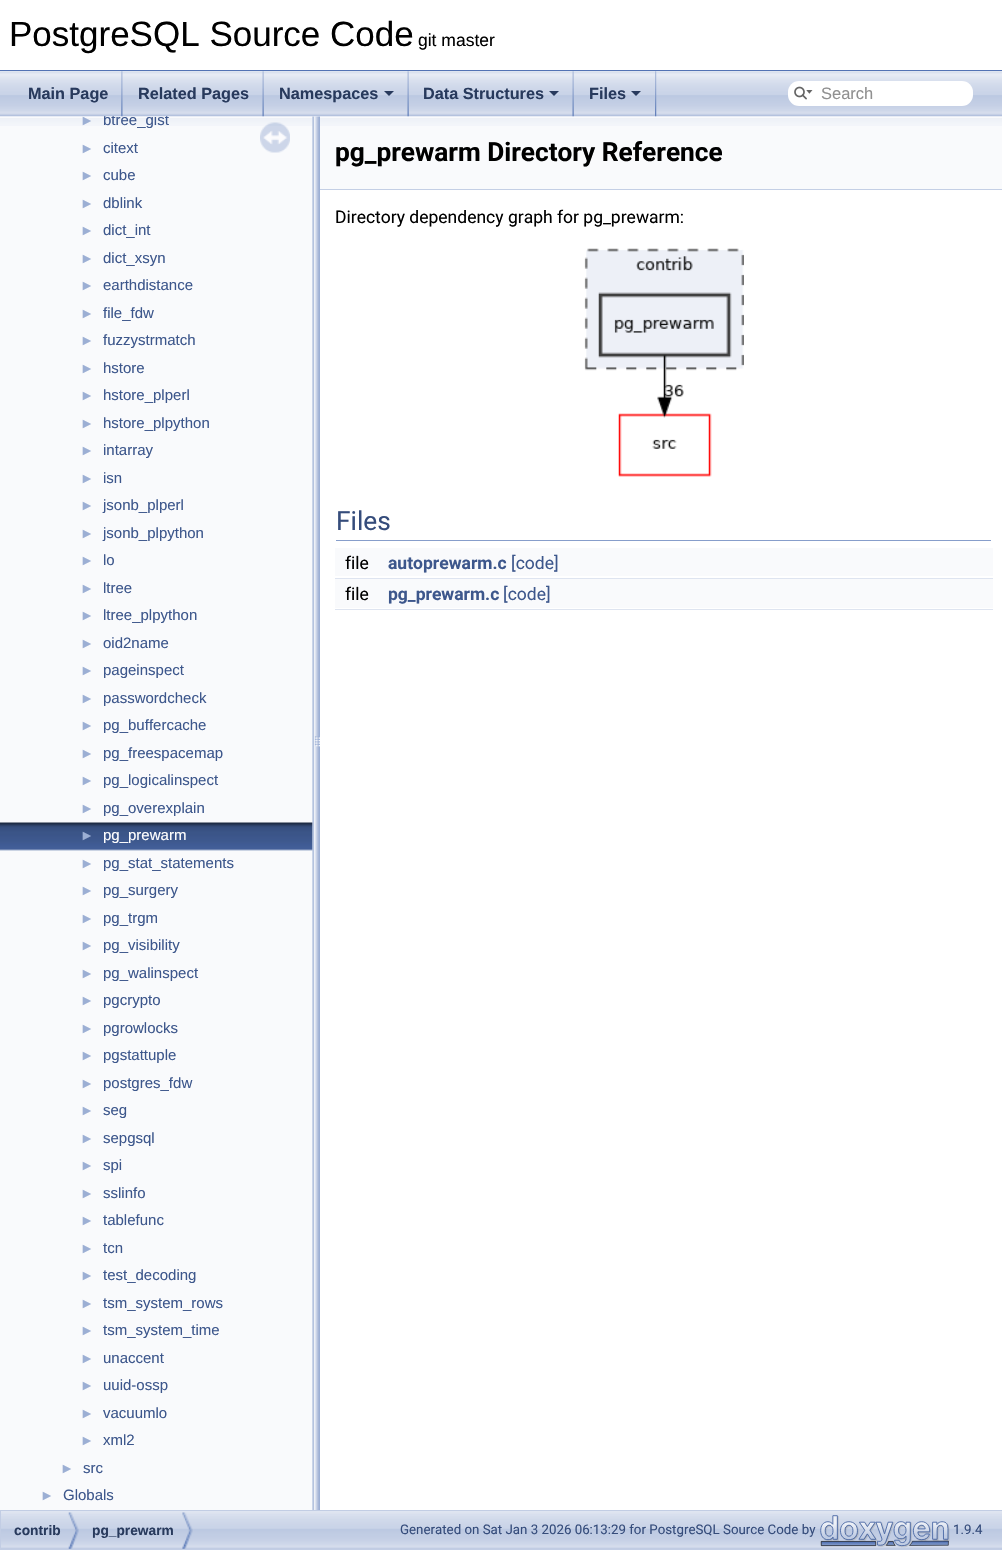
void draw(SkCanvas* canvas) {
	SkPaint paint;
	paint.setAntiAlias(true);
	auto svgPath = [&](const char* data, bool evenOdd = false) {
		SkPath result = *SkParsePath::FromSVGString(data);
		if (evenOdd) result.setFillType(SkPathFillType::kEvenOdd);
		return result;
	};
	canvas->clear(0xffffffff);
	paint.setColor(0xff5373b4);
	canvas->drawRect(SkRect::MakeXYWH(0, 70, 1002, 1), paint);
	SkFont f1(fontMgr->matchFamilyStyle("Liberation Sans", SkFontStyle::Normal()), 35);
	f1.setSubpixel(true);
	paint.setColor(0xff000000);
	canvas->drawString("PostgreSQL Source Code", 9, 46, f1, paint);
	SkFont f2(fontMgr->matchFamilyStyle("Liberation Sans", SkFontStyle::Normal()), 17.5);
	f2.setSubpixel(true);
	canvas->drawString("git master", 418, 46, f2, paint);
	paint.setColor(0xfff9fafc);
	canvas->drawRect(SkRect::MakeXYWH(0, 116, 313, 1394), paint);
	canvas->drawImageRect(SkImages::DeferredFromEncodedData(SkData::MakeFromFileName("img6.png")), SkRect::MakeXYWH(0, 118, 313, 8), SkSamplingOptions());
	SkFont f3(fontMgr->matchFamilyStyle("Liberation Sans", SkFontStyle::Normal()), 14);
	f3.setSubpixel(true);
	paint.setColor(0xff9cafd4);
	canvas->drawString("►", 80, 125, f3, paint);
	SkFont f4(fontMgr->matchFamilyStyle("Liberation Sans", SkFontStyle::Normal()), 15);
	f4.setSubpixel(true);
	paint.setColor(0xff3d578c);
	canvas->drawString("btree_gist", 103, 125, f4, paint);
	canvas->drawImageRect(SkImages::DeferredFromEncodedData(SkData::MakeFromFileName("img7.png")), SkRect::MakeXYWH(0, 822, 313, 29), SkSamplingOptions());
	canvas->drawImageRect(SkImages::DeferredFromEncodedData(SkData::MakeFromFileName("img9.png")), SkRect::MakeXYWH(312, 116, 8, 1394), SkSamplingOptions());
	paint.setColor(0xfff9fafc);
	canvas->drawRect(SkRect::MakeXYWH(320, 116, 682, 73), paint);
	canvas->drawImageRect(SkImages::DeferredFromEncodedData(SkData::MakeFromFileName("img1.png")), SkRect::MakeXYWH(0, 71, 1002, 46), SkSamplingOptions());
	canvas->drawImageRect(SkImages::DeferredFromEncodedData(SkData::MakeFromFileName("img2.png")), SkRect::MakeXYWH(121, 71, 2, 46), SkSamplingOptions());
	SkFont f5(fontMgr->matchFamilyStyle("Liberation Sans", SkFontStyle::Bold()), 16.25);
	f5.setSubpixel(true);
	paint.setColor(0xff283a5d);
	canvas->drawString("Main Page", 28, 99, f5, paint);
	canvas->drawImageRect(SkImages::DeferredFromEncodedData(SkData::MakeFromFileName("img3.png")), SkRect::MakeXYWH(262, 71, 2, 46), SkSamplingOptions());
	canvas->drawString("Related Pages", 138, 99, f5, paint);
	canvas->drawImageRect(SkImages::DeferredFromEncodedData(SkData::MakeFromFileName("img3.png")), SkRect::MakeXYWH(407, 71, 2, 46), SkSamplingOptions());
	canvas->drawString("Namespaces", 279, 99, f5, paint);
	canvas->drawPath(svgPath("M384 91H394L389 96Z"), paint);
	canvas->drawImageRect(SkImages::DeferredFromEncodedData(SkData::MakeFromFileName("img3.png")), SkRect::MakeXYWH(572, 71, 2, 46), SkSamplingOptions());
	canvas->drawString("Data Structures", 423, 99, f5, paint);
	canvas->drawPath(svgPath("M549 91H559L554 96Z"), paint);
	canvas->drawImageRect(SkImages::DeferredFromEncodedData(SkData::MakeFromFileName("img4.png")), SkRect::MakeXYWH(655, 71, 2, 46), SkSamplingOptions());
	canvas->drawString("Files", 589, 99, f5, paint);
	canvas->drawPath(svgPath("M631 91H641L636 96Z"), paint);
	paint.setColor(0xffffffff);
	canvas->drawRoundRect(SkRect::MakeXYWH(788, 81, 185, 25), 11, 11, paint);
	canvas->drawImageRect(SkImages::DeferredFromEncodedData(SkData::MakeFromFileName("img5.png")), SkRect::MakeXYWH(794, 86, 19, 14), SkSamplingOptions());
	SkFont f6(fontMgr->matchFamilyStyle("Liberation Sans", SkFontStyle::Normal()), 16.5);
	f6.setSubpixel(true);
	paint.setColor(0xff909090);
	canvas->drawString("Search", 821, 99, f6, paint);
	paint.setColor(0xff9cafd4);
	canvas->drawString("►", 80, 153, f3, paint);
	paint.setColor(0xff3d578c);
	canvas->drawString("citext", 103, 153, f4, paint);
	paint.setColor(0xff9cafd4);
	canvas->drawString("►", 80, 180, f3, paint);
	paint.setColor(0xff3d578c);
	canvas->drawString("cube", 103, 180, f4, paint);
	paint.setColor(0xff9cafd4);
	canvas->drawString("►", 80, 208, f3, paint);
	paint.setColor(0xff3d578c);
	canvas->drawString("dblink", 103, 208, f4, paint);
	paint.setColor(0xff9cafd4);
	canvas->drawString("►", 80, 235, f3, paint);
	paint.setColor(0xff3d578c);
	canvas->drawString("dict_int", 103, 235, f4, paint);
	paint.setColor(0xff9cafd4);
	canvas->drawString("►", 80, 263, f3, paint);
	paint.setColor(0xff3d578c);
	canvas->drawString("dict_xsyn", 103, 263, f4, paint);
	paint.setColor(0xff9cafd4);
	canvas->drawString("►", 80, 290, f3, paint);
	paint.setColor(0xff3d578c);
	canvas->drawString("earthdistance", 103, 290, f4, paint);
	paint.setColor(0xff9cafd4);
	canvas->drawString("►", 80, 318, f3, paint);
	paint.setColor(0xff3d578c);
	canvas->drawString("file_fdw", 103, 318, f4, paint);
	paint.setColor(0xff9cafd4);
	canvas->drawString("►", 80, 345, f3, paint);
	paint.setColor(0xff3d578c);
	canvas->drawString("fuzzystrmatch", 103, 345, f4, paint);
	paint.setColor(0xff9cafd4);
	canvas->drawString("►", 80, 373, f3, paint);
	paint.setColor(0xff3d578c);
	canvas->drawString("hstore", 103, 373, f4, paint);
	paint.setColor(0xff9cafd4);
	canvas->drawString("►", 80, 400, f3, paint);
	paint.setColor(0xff3d578c);
	canvas->drawString("hstore_plperl", 103, 400, f4, paint);
	paint.setColor(0xff9cafd4);
	canvas->drawString("►", 80, 428, f3, paint);
	paint.setColor(0xff3d578c);
	canvas->drawString("hstore_plpython", 103, 428, f4, paint);
	paint.setColor(0xff9cafd4);
	canvas->drawString("►", 80, 455, f3, paint);
	paint.setColor(0xff3d578c);
	canvas->drawString("intarray", 103, 455, f4, paint);
	paint.setColor(0xff9cafd4);
	canvas->drawString("►", 80, 483, f3, paint);
	paint.setColor(0xff3d578c);
	canvas->drawString("isn", 103, 483, f4, paint);
	paint.setColor(0xff9cafd4);
	canvas->drawString("►", 80, 510, f3, paint);
	paint.setColor(0xff3d578c);
	canvas->drawString("jsonb_plperl", 103, 510, f4, paint);
	paint.setColor(0xff9cafd4);
	canvas->drawString("►", 80, 538, f3, paint);
	paint.setColor(0xff3d578c);
	canvas->drawString("jsonb_plpython", 103, 538, f4, paint);
	paint.setColor(0xff9cafd4);
	canvas->drawString("►", 80, 565, f3, paint);
	paint.setColor(0xff3d578c);
	canvas->drawString("lo", 103, 565, f4, paint);
	paint.setColor(0xff9cafd4);
	canvas->drawString("►", 80, 593, f3, paint);
	paint.setColor(0xff3d578c);
	canvas->drawString("ltree", 103, 593, f4, paint);
	paint.setColor(0xff9cafd4);
	canvas->drawString("►", 80, 620, f3, paint);
	paint.setColor(0xff3d578c);
	canvas->drawString("ltree_plpython", 103, 620, f4, paint);
	paint.setColor(0xff9cafd4);
	canvas->drawString("►", 80, 648, f3, paint);
	paint.setColor(0xff3d578c);
	canvas->drawString("oid2name", 103, 648, f4, paint);
	paint.setColor(0xff9cafd4);
	canvas->drawString("►", 80, 675, f3, paint);
	paint.setColor(0xff3d578c);
	canvas->drawString("pageinspect", 103, 675, f4, paint);
	paint.setColor(0xff9cafd4);
	canvas->drawString("►", 80, 703, f3, paint);
	paint.setColor(0xff3d578c);
	canvas->drawString("passwordcheck", 103, 703, f4, paint);
	paint.setColor(0xff9cafd4);
	canvas->drawString("►", 80, 730, f3, paint);
	paint.setColor(0xff3d578c);
	canvas->drawString("pg_buffercache", 103, 730, f4, paint);
	paint.setColor(0xff9cafd4);
	canvas->drawString("►", 80, 758, f3, paint);
	paint.setColor(0xff3d578c);
	canvas->drawString("pg_freespacemap", 103, 758, f4, paint);
	paint.setColor(0xff9cafd4);
	canvas->drawString("►", 80, 785, f3, paint);
	paint.setColor(0xff3d578c);
	canvas->drawString("pg_logicalinspect", 103, 785, f4, paint);
	paint.setColor(0xff9cafd4);
	canvas->drawString("►", 80, 813, f3, paint);
	paint.setColor(0xff3d578c);
	canvas->drawString("pg_overexplain", 103, 813, f4, paint);
	paint.setColor(0xff9cafd4);
	canvas->drawString("►", 80, 840, f3, paint);
	paint.setColor(0xffffffff);
	canvas->drawString("pg_prewarm", 103, 840, f4, paint);
	paint.setColor(0xff9cafd4);
	canvas->drawString("►", 80, 868, f3, paint);
	paint.setColor(0xff3d578c);
	canvas->drawString("pg_stat_statements", 103, 868, f4, paint);
	paint.setColor(0xff9cafd4);
	canvas->drawString("►", 80, 895, f3, paint);
	paint.setColor(0xff3d578c);
	canvas->drawString("pg_surgery", 103, 895, f4, paint);
	paint.setColor(0xff9cafd4);
	canvas->drawString("►", 80, 923, f3, paint);
	paint.setColor(0xff3d578c);
	canvas->drawString("pg_trgm", 103, 923, f4, paint);
	paint.setColor(0xff9cafd4);
	canvas->drawString("►", 80, 950, f3, paint);
	paint.setColor(0xff3d578c);
	canvas->drawString("pg_visibility", 103, 950, f4, paint);
	paint.setColor(0xff9cafd4);
	canvas->drawString("►", 80, 978, f3, paint);
	paint.setColor(0xff3d578c);
	canvas->drawString("pg_walinspect", 103, 978, f4, paint);
	paint.setColor(0xff9cafd4);
	canvas->drawString("►", 80, 1005, f3, paint);
	paint.setColor(0xff3d578c);
	canvas->drawString("pgcrypto", 103, 1005, f4, paint);
	paint.setColor(0xff9cafd4);
	canvas->drawString("►", 80, 1033, f3, paint);
	paint.setColor(0xff3d578c);
	canvas->drawString("pgrowlocks", 103, 1033, f4, paint);
	paint.setColor(0xff9cafd4);
	canvas->drawString("►", 80, 1060, f3, paint);
	paint.setColor(0xff3d578c);
	canvas->drawString("pgstattuple", 103, 1060, f4, paint);
	paint.setColor(0xff9cafd4);
	canvas->drawString("►", 80, 1088, f3, paint);
	paint.setColor(0xff3d578c);
	canvas->drawString("postgres_fdw", 103, 1088, f4, paint);
	paint.setColor(0xff9cafd4);
	canvas->drawString("►", 80, 1115, f3, paint);
	paint.setColor(0xff3d578c);
	canvas->drawString("seg", 103, 1115, f4, paint);
	paint.setColor(0xff9cafd4);
	canvas->drawString("►", 80, 1143, f3, paint);
	paint.setColor(0xff3d578c);
	canvas->drawString("sepgsql", 103, 1143, f4, paint);
	paint.setColor(0xff9cafd4);
	canvas->drawString("►", 80, 1170, f3, paint);
	paint.setColor(0xff3d578c);
	canvas->drawString("spi", 103, 1170, f4, paint);
	paint.setColor(0xff9cafd4);
	canvas->drawString("►", 80, 1198, f3, paint);
	paint.setColor(0xff3d578c);
	canvas->drawString("sslinfo", 103, 1198, f4, paint);
	paint.setColor(0xff9cafd4);
	canvas->drawString("►", 80, 1225, f3, paint);
	paint.setColor(0xff3d578c);
	canvas->drawString("tablefunc", 103, 1225, f4, paint);
	paint.setColor(0xff9cafd4);
	canvas->drawString("►", 80, 1253, f3, paint);
	paint.setColor(0xff3d578c);
	canvas->drawString("tcn", 103, 1253, f4, paint);
	paint.setColor(0xff9cafd4);
	canvas->drawString("►", 80, 1280, f3, paint);
	paint.setColor(0xff3d578c);
	canvas->drawString("test_decoding", 103, 1280, f4, paint);
	paint.setColor(0xff9cafd4);
	canvas->drawString("►", 80, 1308, f3, paint);
	paint.setColor(0xff3d578c);
	canvas->drawString("tsm_system_rows", 103, 1308, f4, paint);
	paint.setColor(0xff9cafd4);
	canvas->drawString("►", 80, 1335, f3, paint);
	paint.setColor(0xff3d578c);
	canvas->drawString("tsm_system_time", 103, 1335, f4, paint);
	paint.setColor(0xff9cafd4);
	canvas->drawString("►", 80, 1363, f3, paint);
	paint.setColor(0xff3d578c);
	canvas->drawString("unaccent", 103, 1363, f4, paint);
	paint.setColor(0xff9cafd4);
	canvas->drawString("►", 80, 1390, f3, paint);
	paint.setColor(0xff3d578c);
	canvas->drawString("uuid-ossp", 103, 1390, f4, paint);
	paint.setColor(0xff9cafd4);
	canvas->drawString("►", 80, 1418, f3, paint);
	paint.setColor(0xff3d578c);
	canvas->drawString("vacuumlo", 103, 1418, f4, paint);
	paint.setColor(0xff9cafd4);
	canvas->drawString("►", 80, 1445, f3, paint);
	paint.setColor(0xff3d578c);
	canvas->drawString("xml2", 103, 1445, f4, paint);
	paint.setColor(0xff9cafd4);
	canvas->drawString("►", 60, 1473, f3, paint);
	paint.setColor(0xff3d578c);
	canvas->drawString("src", 83, 1473, f4, paint);
	paint.setColor(0xff9cafd4);
	canvas->drawString("►", 40, 1500, f3, paint);
	paint.setColor(0xff3d578c);
	canvas->drawString("Globals", 63, 1500, f4, paint);
	canvas->drawImageRect(SkImages::DeferredFromEncodedData(SkData::MakeFromFileName("img8.png")), SkRect::MakeXYWH(260, 122, 30, 31), SkSamplingOptions());
	canvas->drawImageRect(SkImages::DeferredFromEncodedData(SkData::MakeFromFileName("img10.png")), SkRect::MakeXYWH(320, 118, 682, 8), SkSamplingOptions());
	paint.setColor(0xffc4cfe5);
	canvas->drawRect(SkRect::MakeXYWH(320, 189, 682, 1), paint);
	SkFont f7(fontMgr->matchFamilyStyle("Roboto", SkFontStyle::Bold()), 26.25);
	f7.setSubpixel(true);
	paint.setColor(0xff000000);
	canvas->drawString("pg_prewarm Directory Reference", 335, 161, f7, paint);
	SkFont f8(fontMgr->matchFamilyStyle("Roboto", SkFontStyle::Normal()), 17.5);
	f8.setSubpixel(true);
	canvas->drawString("Directory dependency graph for pg_prewarm:", 335, 223, f8, paint);
	canvas->drawImageRect(SkImages::DeferredFromEncodedData(SkData::MakeFromFileName("img11.png")), SkRect::MakeXYWH(584, 248, 160, 229), SkSamplingOptions());
	paint.setColor(0xff879ecb);
	canvas->drawRect(SkRect::MakeXYWH(336, 540, 655, 1), paint);
	SkFont f9(fontMgr->matchFamilyStyle("Roboto", SkFontStyle::Normal()), 26.25);
	f9.setSubpixel(true);
	paint.setColor(0xff354c7b);
	canvas->drawString("Files", 336, 530, f9, paint);
	paint.setColor(0xfff9fafc);
	canvas->drawRect(SkRect::MakeXYWH(335, 548, 658, 28), paint);
	paint.setColor(0xff000000);
	canvas->drawString("file", 345, 569, f8, paint);
	SkFont f10(fontMgr->matchFamilyStyle("Roboto", SkFontStyle::Bold()), 17.5);
	f10.setSubpixel(true);
	paint.setColor(0xff3d578c);
	canvas->drawString("autoprewarm.c", 388, 569, f10, paint);
	canvas->drawString("[code]", 511, 569, f8, paint);
	paint.setColor(0xffdee4f0);
	canvas->drawRect(SkRect::MakeXYWH(335, 578, 658, 1), paint);
	paint.setColor(0xfff9fafc);
	canvas->drawRect(SkRect::MakeXYWH(335, 579, 658, 29), paint);
	paint.setColor(0xff000000);
	canvas->drawString("file", 345, 600, f8, paint);
	paint.setColor(0xff3d578c);
	canvas->drawString("pg_prewarm.c", 388, 600, f10, paint);
	canvas->drawString("[code]", 503, 600, f8, paint);
	paint.setColor(0xffdee4f0);
	canvas->drawRect(SkRect::MakeXYWH(335, 609, 658, 1), paint);
	canvas->drawImageRect(SkImages::DeferredFromEncodedData(SkData::MakeFromFileName("img12.png")), SkRect::MakeXYWH(1, 1511, 1001, 38), SkSamplingOptions());
	paint.setStroke(true);
	paint.setStrokeWidth(1);
	paint.setColor(0xffc2cde4);
	canvas->drawRect(SkRect::MakeXYWH(0.5, 1510.5, 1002, 39), paint);
	canvas->drawImageRect(SkImages::DeferredFromEncodedData(SkData::MakeFromFileName("img13.png")), SkRect::MakeXYWH(68, 1512, 11, 37), SkSamplingOptions());
	SkFont f11(fontMgr->matchFamilyStyle("Liberation Sans", SkFontStyle::Bold()), 13.75);
	f11.setSubpixel(true);
	paint.setStroke(false);
	paint.setColor(0xff283a5d);
	canvas->drawString("contrib", 14, 1535, f11, paint);
	canvas->drawImageRect(SkImages::DeferredFromEncodedData(SkData::MakeFromFileName("img14.png")), SkRect::MakeXYWH(182, 1512, 11, 37), SkSamplingOptions());
	canvas->drawString("pg_prewarm", 92, 1535, f11, paint);
	SkFont f12(fontMgr->matchFamilyStyle("Roboto", SkFontStyle::Normal()), 13.3);
	f12.setSubpixel(true);
	paint.setColor(0xff354c7b);
	canvas->drawString("Generated on Sat Jan 3 2026 06:13:29 for PostgreSQL Source Code by", 400, 1534, f12, paint);
	canvas->drawImageRect(SkImages::DeferredFromEncodedData(SkData::MakeFromFileName("img15.png")), SkRect::MakeXYWH(820, 1515, 130, 33), SkSamplingOptions());
	canvas->drawString("1.9.4", 953, 1534, f12, paint);
}
